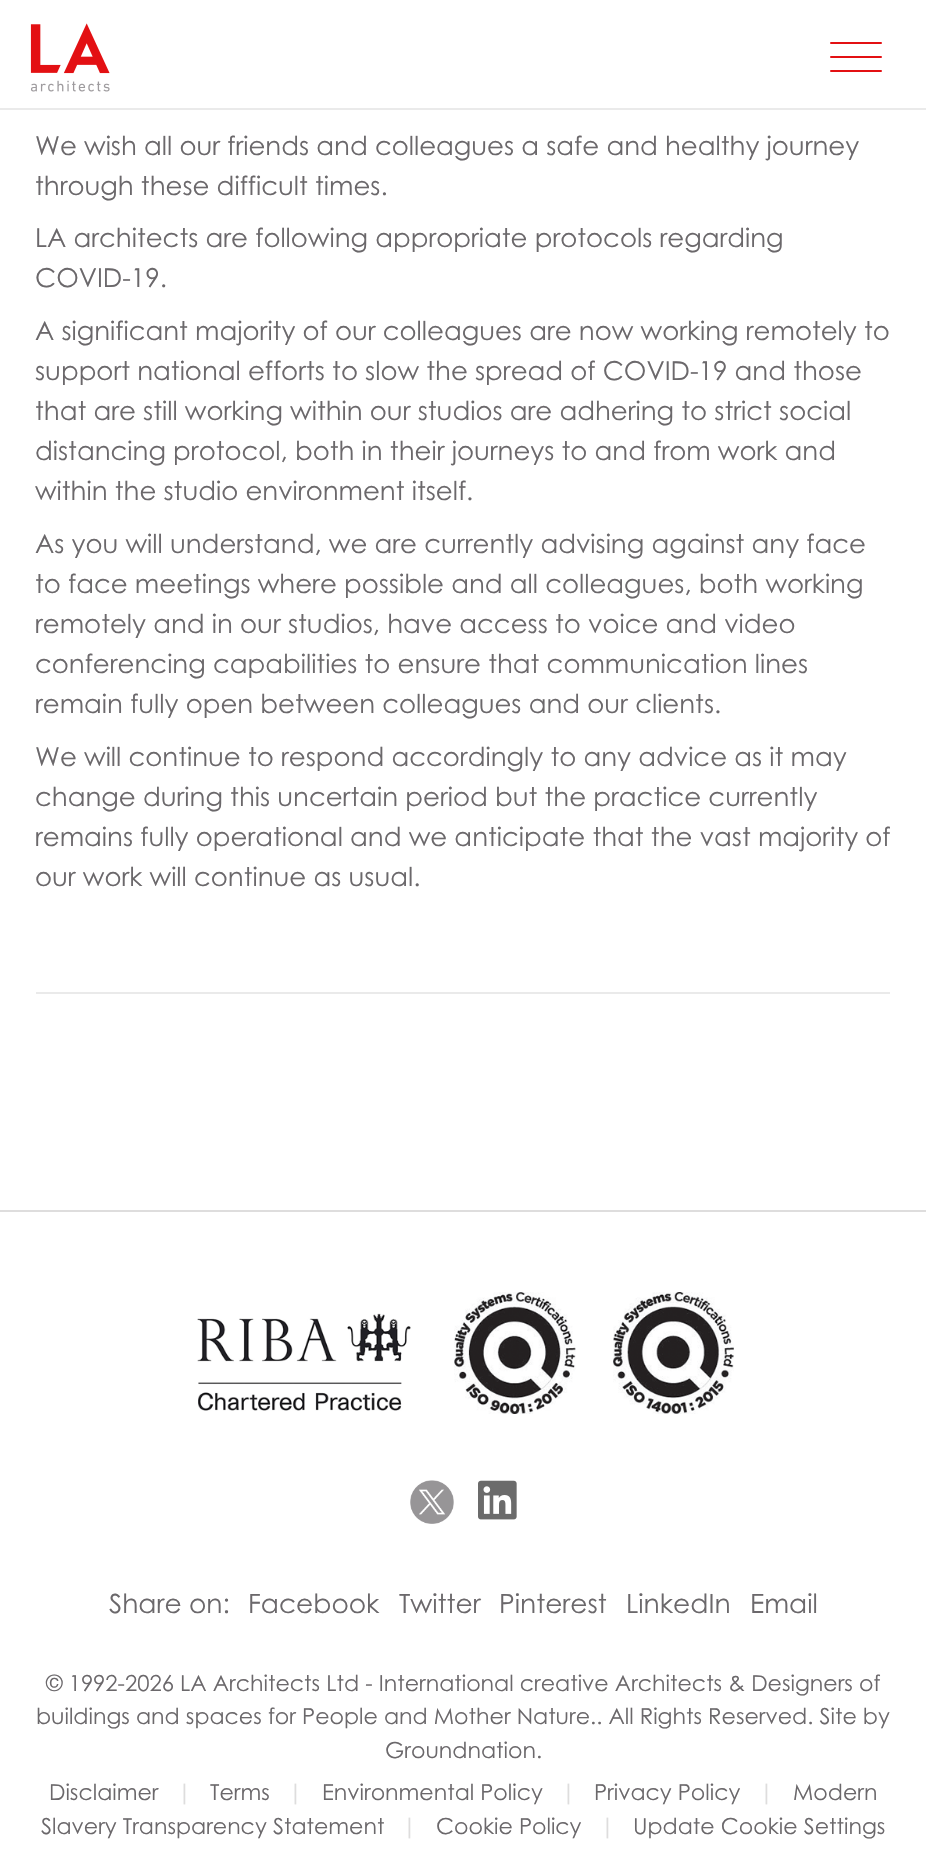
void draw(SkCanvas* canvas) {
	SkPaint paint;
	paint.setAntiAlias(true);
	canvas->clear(0xffffffff);
	paint.setColor(0xffeaeaea);
	canvas->drawRect(SkRect::MakeXYWH(0, 108, 926, 2), paint);
	canvas->drawImageRect(SkImages::DeferredFromEncodedData(SkData::MakeFromFileName("img1.png")), SkRect::MakeXYWH(30, 23, 80, 69), SkSamplingOptions());
	paint.setColor(0xffe31013);
	canvas->drawRoundRect(SkRect::MakeXYWH(830, 56, 52, 2), 1, 1, paint);
	canvas->drawRoundRect(SkRect::MakeXYWH(830, 42, 52, 2), 1, 1, paint);
	canvas->drawRoundRect(SkRect::MakeXYWH(830, 70, 52, 2), 1, 1, paint);
	SkFont f1(fontMgr->matchFamilyStyle("Century Gothic", SkFontStyle::Normal()), 26);
	f1.setSubpixel(true);
	paint.setColor(0xff6b686b);
	canvas->drawString("We wish all our friends and colleagues a safe and healthy journey", 35, 155, f1, paint);
	canvas->drawString("through these difficult times.", 35, 195, f1, paint);
	canvas->drawString("LA architects are following appropriate protocols regarding", 35, 247, f1, paint);
	canvas->drawString("COVID-19.", 35, 287, f1, paint);
	canvas->drawString("A significant majority of our colleagues are now working remotely to", 35, 340, f1, paint);
	canvas->drawString("support national efforts to slow the spread of COVID-19 and those", 35, 380, f1, paint);
	canvas->drawString("that are still working within our studios are adhering to strict social", 35, 420, f1, paint);
	canvas->drawString("distancing protocol, both in their journeys to and from work and", 35, 460, f1, paint);
	canvas->drawString("within the studio environment itself.", 35, 500, f1, paint);
	canvas->drawString("As you will understand, we are currently advising against any face", 35, 553, f1, paint);
	canvas->drawString("to face meetings where possible and all colleagues, both working", 35, 593, f1, paint);
	canvas->drawString("remotely and in our studios, have access to voice and video", 35, 633, f1, paint);
	canvas->drawString("conferencing capabilities to ensure that communication lines", 35, 673, f1, paint);
	canvas->drawString("remain fully open between colleagues and our clients.", 35, 713, f1, paint);
	canvas->drawString("We will continue to respond accordingly to any advice as it may", 35, 766, f1, paint);
	canvas->drawString("change during this uncertain period but the practice currently", 35, 806, f1, paint);
	canvas->drawString("remains fully operational and we anticipate that the vast majority of", 35, 846, f1, paint);
	canvas->drawString("our work will continue as usual.", 35, 886, f1, paint);
	paint.setColor(0xffeaeaea);
	canvas->drawRect(SkRect::MakeXYWH(36, 992, 854, 2), paint);
	paint.setColor(0xffdedddd);
	canvas->drawRect(SkRect::MakeXYWH(0, 1210, 926, 2), paint);
	canvas->drawImageRect(SkImages::DeferredFromEncodedData(SkData::MakeFromFileName("img2.png")), SkRect::MakeXYWH(197, 1292, 537, 122), SkSamplingOptions());
	canvas->drawImageRect(SkImages::DeferredFromEncodedData(SkData::MakeFromFileName("img3.png")), SkRect::MakeXYWH(410, 1480, 44, 44), SkSamplingOptions());
	canvas->drawImageRect(SkImages::DeferredFromEncodedData(SkData::MakeFromFileName("img4.png")), SkRect::MakeXYWH(478, 1480, 39, 40), SkSamplingOptions());
	SkFont f2(fontMgr->matchFamilyStyle("Century Gothic", SkFontStyle::Normal()), 26.5);
	f2.setSubpixel(true);
	paint.setColor(0xff6b686b);
	canvas->drawString("Share on:", 109, 1613, f2, paint);
	canvas->drawString("Facebook", 248, 1613, f2, paint);
	canvas->drawString("Twitter", 399, 1613, f2, paint);
	canvas->drawString("Pinterest", 499, 1613, f2, paint);
	canvas->drawString("LinkedIn", 626, 1613, f2, paint);
	canvas->drawString("Email", 750, 1613, f2, paint);
	SkFont f3(fontMgr->matchFamilyStyle("Century Gothic", SkFontStyle::Normal()), 22.1);
	f3.setSubpixel(true);
	canvas->drawString("© 1992-2026 LA Architects Ltd - International creative Architects & Designers of", 46, 1691, f3, paint);
	canvas->drawString("buildings and spaces for People and Mother Nature.. All Rights Reserved. Site by", 36, 1724, f3, paint);
	canvas->drawString("Groundnation.", 385, 1758, f3, paint);
	canvas->drawString("Disclaimer", 49, 1800, f3, paint);
	paint.setColor(0xffdedddd);
	canvas->drawString("|", 177, 1800, f3, paint);
	paint.setColor(0xff6b686b);
	canvas->drawString("Terms", 210, 1800, f3, paint);
	paint.setColor(0xffdedddd);
	canvas->drawString("|", 288, 1800, f3, paint);
	paint.setColor(0xff6b686b);
	canvas->drawString("Environmental Policy", 322, 1800, f3, paint);
	paint.setColor(0xffdedddd);
	canvas->drawString("|", 561, 1800, f3, paint);
	paint.setColor(0xff6b686b);
	canvas->drawString("Privacy Policy", 594, 1800, f3, paint);
	paint.setColor(0xffdedddd);
	canvas->drawString("|", 759, 1800, f3, paint);
	paint.setColor(0xff6b686b);
	canvas->drawString("Modern", 793, 1800, f3, paint);
	canvas->drawString("Slavery Transparency Statement", 41, 1834, f3, paint);
	paint.setColor(0xffdedddd);
	canvas->drawString("|", 402, 1834, f3, paint);
	paint.setColor(0xff6b686b);
	canvas->drawString("Cookie Policy", 436, 1834, f3, paint);
	paint.setColor(0xffdedddd);
	canvas->drawString("|", 600, 1834, f3, paint);
	paint.setColor(0xff6b686b);
	canvas->drawString("Update Cookie Settings", 633, 1834, f3, paint);
}
